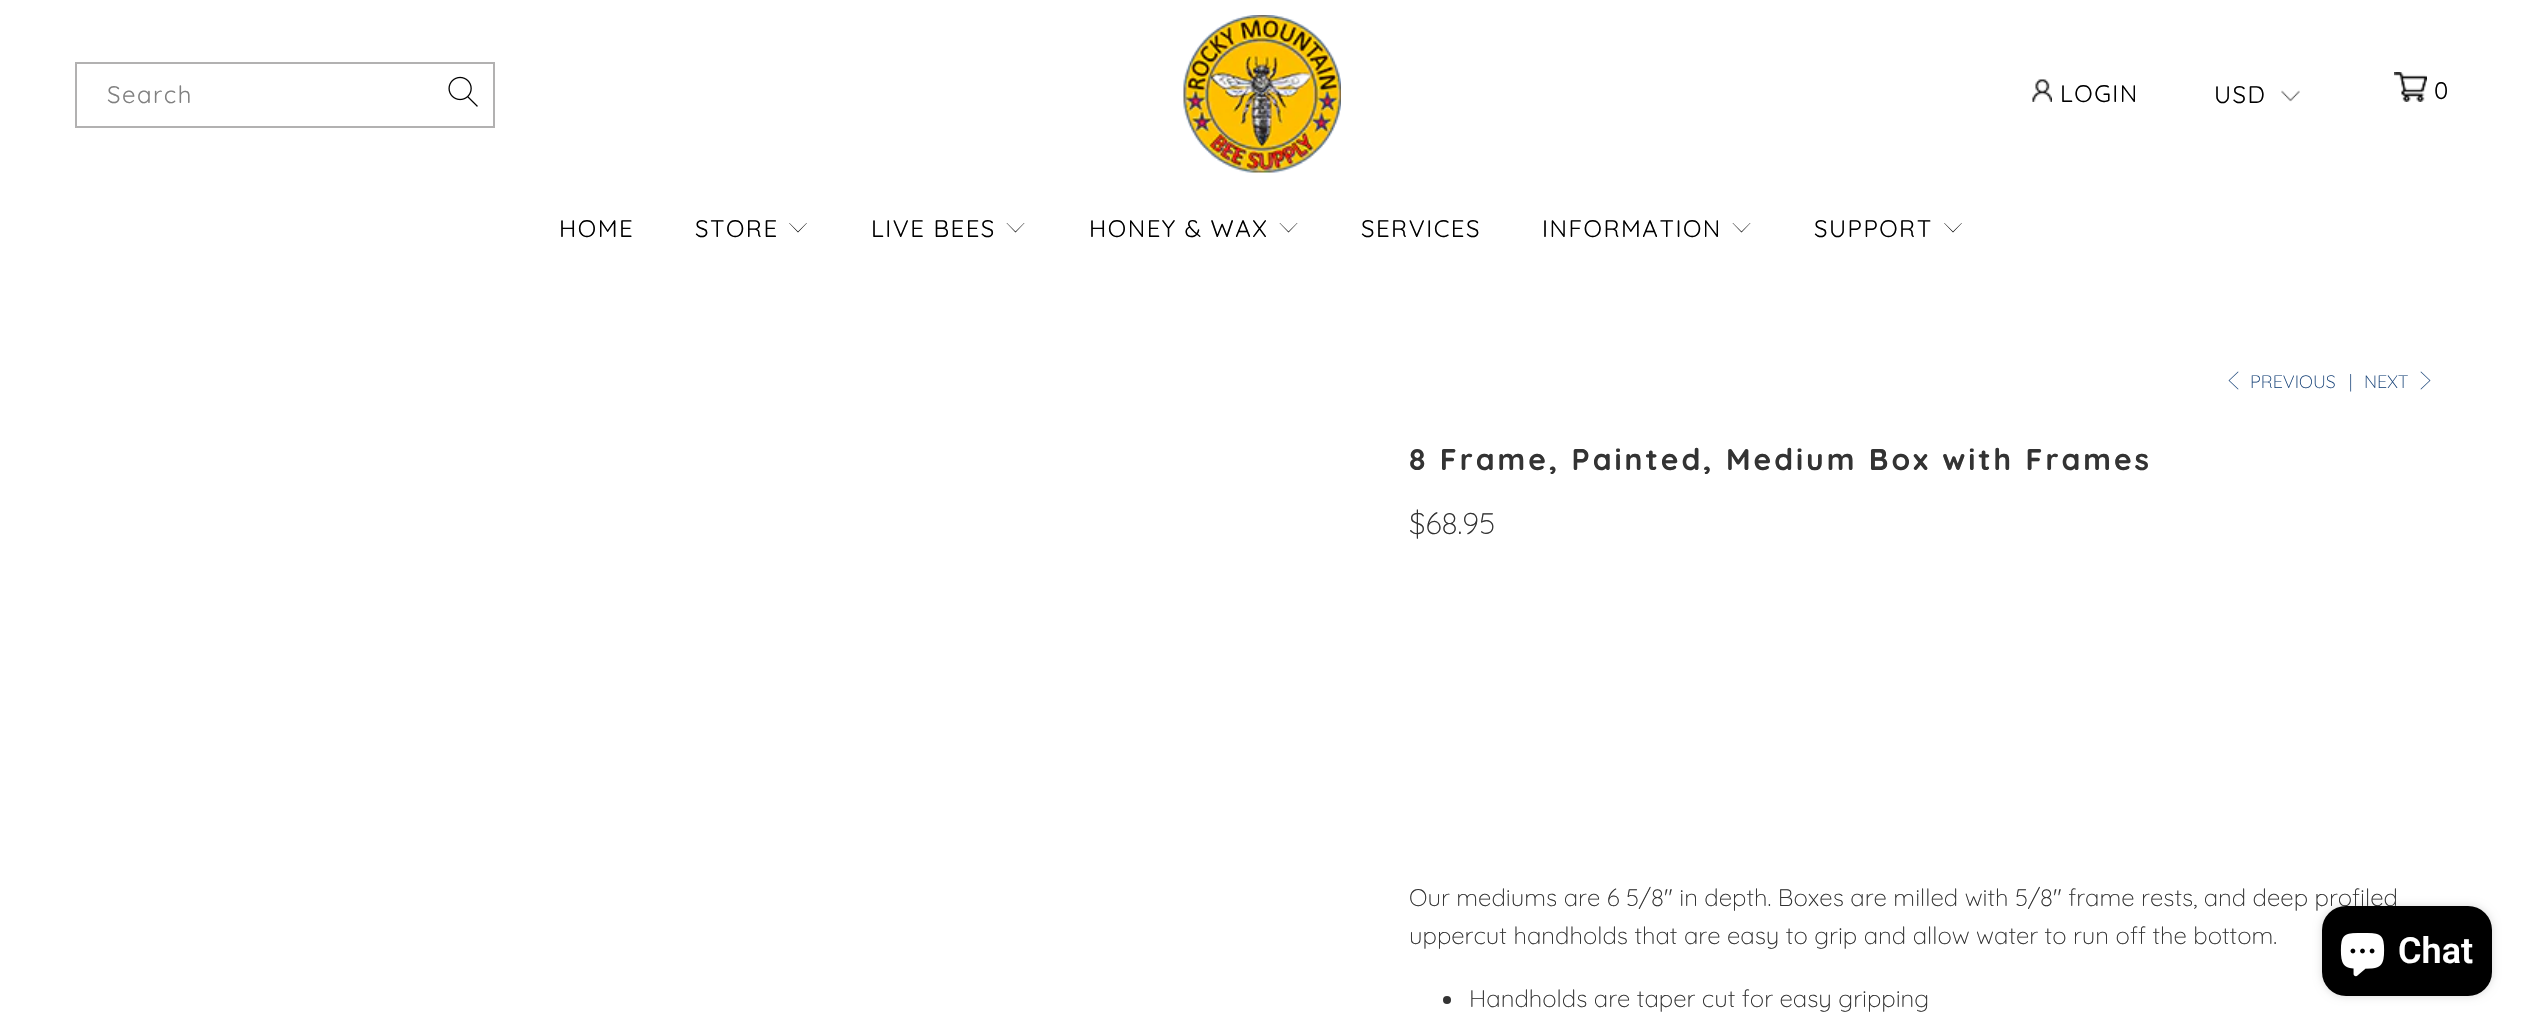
void draw(SkCanvas* canvas) {
	SkPaint paint;
	paint.setAntiAlias(true);
	auto spacedText = [&](const char* s, float x, float y, const SkFont& font, const SkPaint& ink, float letter, float word) {
		std::vector<SkGlyphID> glyphs(font.countText(s, strlen(s), SkTextEncoding::kUTF8));
		std::vector<float> xs(glyphs.size());
		font.textToGlyphs(s, strlen(s), SkTextEncoding::kUTF8, glyphs);
		font.getXPos(glyphs, xs, x);
		float extra = 0;
		for (size_t i = 0; i < glyphs.size(); i++) {
			xs[i] += extra;
			extra += letter + word * (glyphs[i] == font.unicharToGlyph(' '));
		}
		canvas->drawTextBlob(SkTextBlob::MakeFromPosHGlyphs(glyphs, xs, y, font), 0, 0, ink);
	};
	auto svgPath = [&](const char* data, bool evenOdd = false) {
		SkPath result = *SkParsePath::FromSVGString(data);
		if (evenOdd) result.setFillType(SkPathFillType::kEvenOdd);
		return result;
	};
	canvas->clear(0xffffffff);
	paint.setStroke(true);
	paint.setStrokeWidth(2);
	paint.setColor(0xffb2b1b1);
	canvas->drawRect(SkRect::MakeXYWH(76, 63, 418, 64), paint);
	SkFont f1(fontMgr->matchFamilyStyle("Quicksand", SkFontStyle::Normal()), 24);
	f1.setSubpixel(true);
	paint.setStroke(false);
	paint.setColor(0xff808080);
	spacedText("Search", 107, 103, f1, paint, 1.5, 0);
	canvas->drawImageRect(SkImages::DeferredFromEncodedData(SkData::MakeFromFileName("img1.png")), SkRect::MakeXYWH(448, 76, 30, 31), SkSamplingOptions());
	canvas->drawImageRect(SkImages::DeferredFromEncodedData(SkData::MakeFromFileName("img2.png")), SkRect::MakeXYWH(1183, 15, 158, 158), SkSamplingOptions());
	canvas->drawImageRect(SkImages::DeferredFromEncodedData(SkData::MakeFromFileName("img3.png")), SkRect::MakeXYWH(2032, 79, 20, 23), SkSamplingOptions());
	paint.setColor(0xff000000);
	spacedText("LOGIN", 2060, 102, f1, paint, 1.5, 0);
	canvas->drawImageRect(SkImages::DeferredFromEncodedData(SkData::MakeFromFileName("img4.png")), SkRect::MakeXYWH(2281, 90, 19, 12), SkSamplingOptions());
	spacedText("USD", 2214, 103, f1, paint, 1.5, 0);
	canvas->drawImageRect(SkImages::DeferredFromEncodedData(SkData::MakeFromFileName("img5.png")), SkRect::MakeXYWH(2394, 72, 33, 30), SkSamplingOptions());
	spacedText("0", 2434, 99, f1, paint, 1.5, 0);
	spacedText("HOME", 559, 237, f1, paint, 1.5, 0);
	spacedText("STORE", 695, 237, f1, paint, 1.5, 0);
	canvas->drawPath(svgPath("M798 232.5L789 223H789.5L798 231.5L806.5 223H807Z"), paint);
	spacedText("LIVE BEES", 871, 237, f1, paint, 1.5, 0);
	canvas->drawPath(svgPath("M1015.5 232.5L1006.5 223H1007L1015.5 231.5L1024 223H1024.5Z"), paint);
	spacedText("HONEY & WAX", 1089, 237, f1, paint, 1.5, 0);
	canvas->drawPath(svgPath("M1288.5 232.5L1279.5 223H1280L1288.5 231.5L1297 223H1297.5Z"), paint);
	spacedText("SERVICES", 1361, 237, f1, paint, 1.5, 0);
	spacedText("INFORMATION", 1542, 237, f1, paint, 1.5, 0);
	canvas->drawPath(svgPath("M1741.5 232.5L1732.5 223H1733L1741.5 231.5L1750 223H1750.5Z"), paint);
	spacedText("SUPPORT", 1814, 237, f1, paint, 1.5, 0);
	canvas->drawPath(svgPath("M1953 232.5L1944 223H1944.5L1953 231.5L1961.5 223H1962Z"), paint);
	paint.setColor(0xff1f497d);
	canvas->drawPath(svgPath("M2238 389.5L2228.5 380.5L2238 371.5L2238.5 372L2229.5 380.5L2238.5 389Z"), paint);
	SkFont f2(fontMgr->matchFamilyStyle("Quicksand", SkFontStyle(300, SkFontStyle::kNormal_Width, SkFontStyle::kUpright_Slant)), 18);
	f2.setSubpixel(true);
	canvas->drawString("PREVIOUS", 2250, 388, f2, paint);
	canvas->drawString("|", 2349, 388, f2, paint);
	canvas->drawString("NEXT", 2364, 388, f2, paint);
	canvas->drawPath(svgPath("M2421 389.5L2420.5 389L2429.5 380.5L2420.5 372L2421 371.5L2430.5 380.5Z"), paint);
	SkFont f3(fontMgr->matchFamilyStyle("Quicksand", SkFontStyle::Bold()), 30);
	f3.setSubpixel(true);
	paint.setColor(0xff333333);
	spacedText("8 Frame, Painted, Medium Box with Frames", 1409, 470, f3, paint, 3, 0);
	SkFont f4(fontMgr->matchFamilyStyle("Quicksand", SkFontStyle(300, SkFontStyle::kNormal_Width, SkFontStyle::kUpright_Slant)), 30);
	f4.setSubpixel(true);
	canvas->drawString("$68.95", 1409, 534, f4, paint);
	SkFont f5(fontMgr->matchFamilyStyle("Quicksand", SkFontStyle(300, SkFontStyle::kNormal_Width, SkFontStyle::kUpright_Slant)), 24);
	f5.setSubpixel(true);
	canvas->drawString("Our mediums are 6 5/8″ in depth. Boxes are milled with 5/8″ frame rests, and deep profiled", 1409, 906, f5, paint);
	canvas->drawString("uppercut handholds that are easy to grip and allow water to run off the bottom.", 1409, 944, f5, paint);
	canvas->drawCircle(1447, 1000, 4, paint);
	canvas->drawString("Handholds are taper cut for easy gripping", 1469, 1007, f5, paint);
	paint.setColor(0x26000000);
	paint.setMaskFilter(SkMaskFilter::MakeBlur(kNormal_SkBlurStyle, 4));
	canvas->drawRoundRect(SkRect::MakeXYWH(2322, 906, 170, 90), 24, 24, paint);
	paint.setMaskFilter(nullptr);
	paint.setColor(0xff000000);
	canvas->drawRoundRect(SkRect::MakeXYWH(2322, 906, 170, 90), 24, 24, paint);
	canvas->drawImageRect(SkImages::DeferredFromEncodedData(SkData::MakeFromFileName("img6.png")), SkRect::MakeXYWH(2340, 933, 45, 44), SkSamplingOptions());
	SkFont f6(fontMgr->matchFamilyStyle("Roboto", SkFontStyle(600, SkFontStyle::kNormal_Width, SkFontStyle::kUpright_Slant)), 36);
	f6.setSubpixel(true);
	paint.setColor(0xffffffff);
	canvas->drawString("Chat", 2398, 963, f6, paint);
}
